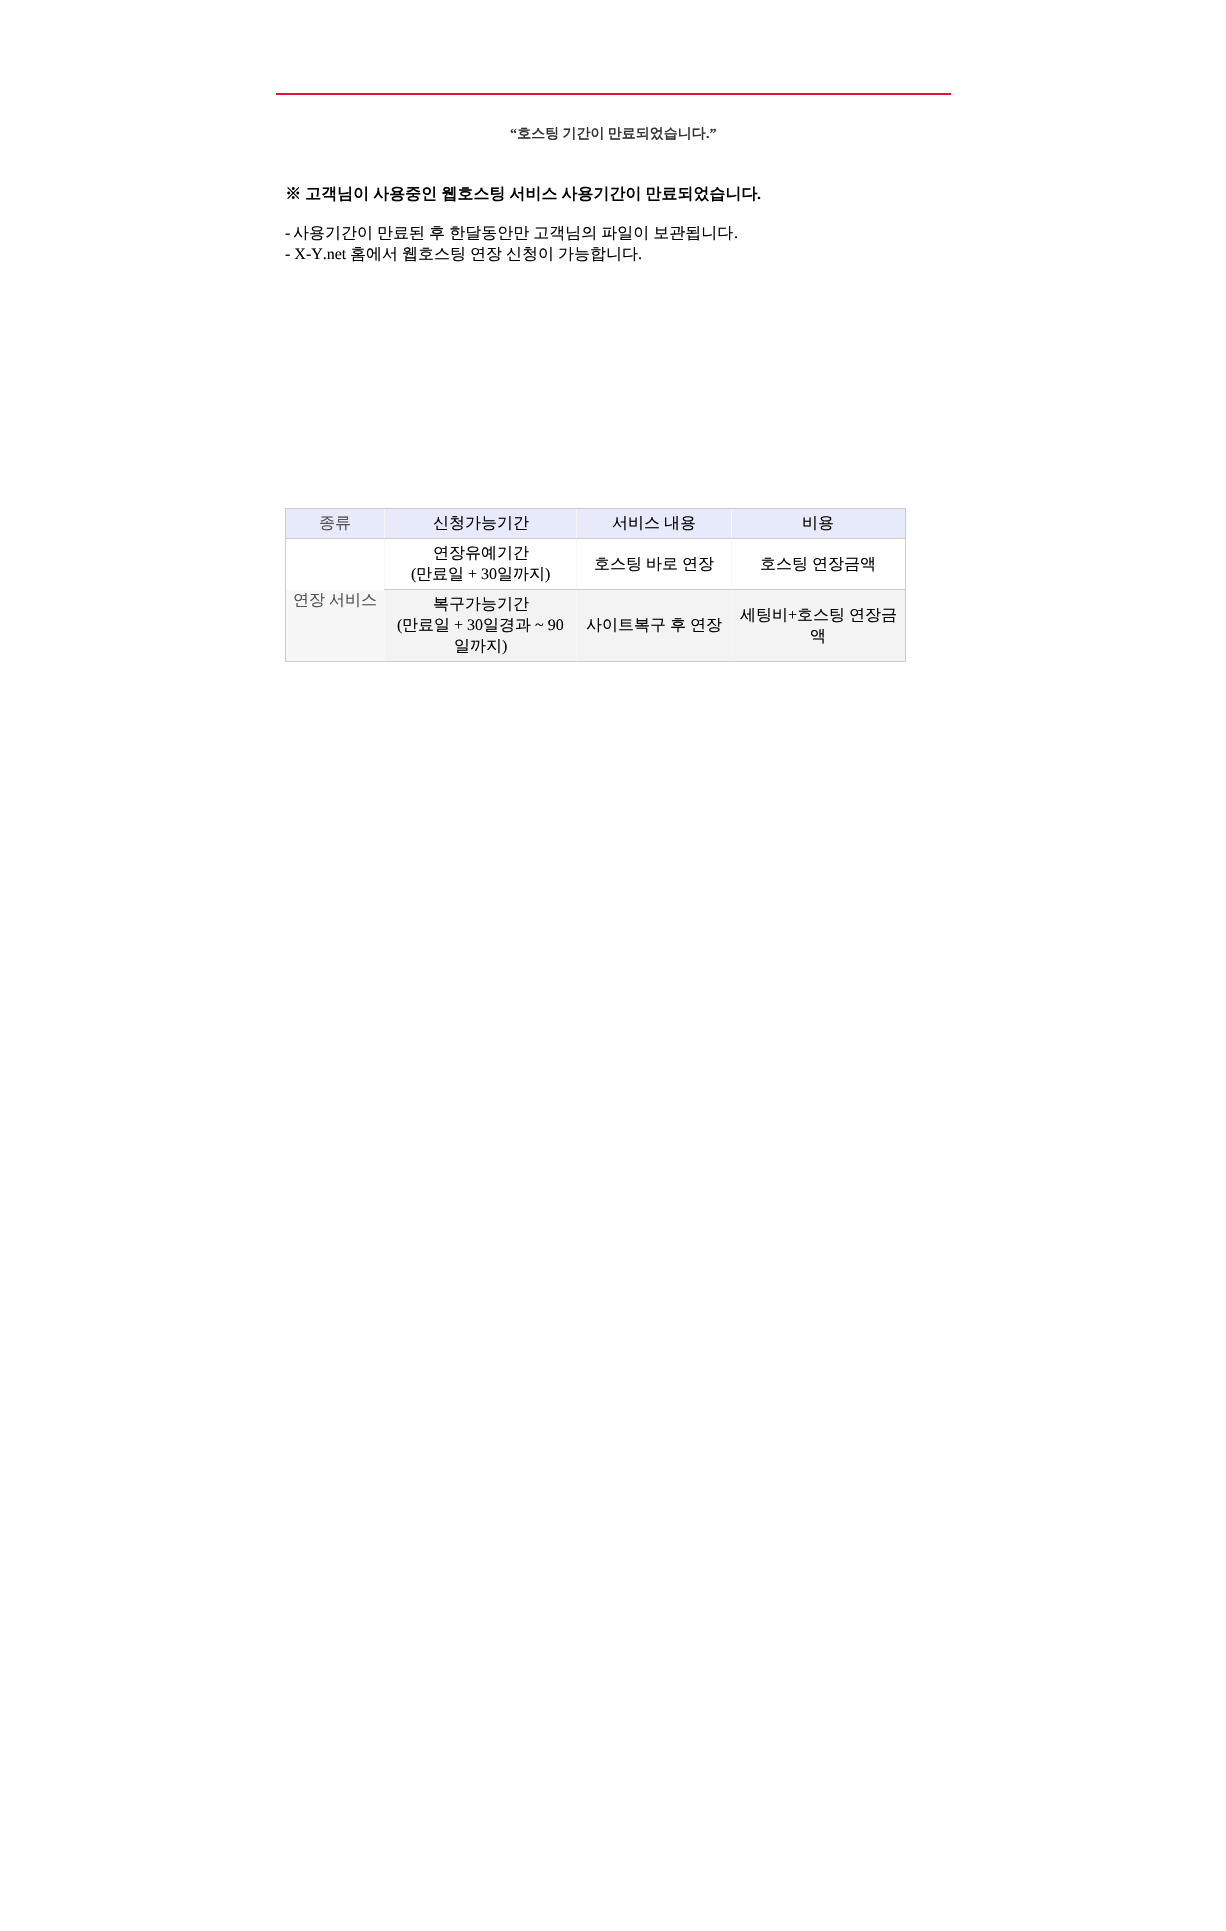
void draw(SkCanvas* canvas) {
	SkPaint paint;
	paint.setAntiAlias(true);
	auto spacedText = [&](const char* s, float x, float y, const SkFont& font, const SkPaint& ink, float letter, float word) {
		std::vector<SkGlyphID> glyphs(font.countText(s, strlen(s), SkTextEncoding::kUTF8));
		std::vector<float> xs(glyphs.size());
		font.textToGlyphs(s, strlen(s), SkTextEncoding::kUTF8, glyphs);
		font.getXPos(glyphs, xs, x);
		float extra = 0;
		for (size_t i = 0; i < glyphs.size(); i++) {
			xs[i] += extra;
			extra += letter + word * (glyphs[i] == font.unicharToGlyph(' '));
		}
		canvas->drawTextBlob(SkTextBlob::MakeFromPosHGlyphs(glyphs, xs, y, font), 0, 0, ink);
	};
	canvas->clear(0xffffffff);
	paint.setColor(0xffe11733);
	canvas->drawRect(SkRect::MakeXYWH(276, 93, 675, 2), paint);
	SkFont f1(fontMgr->matchFamilyStyle("Liberation Serif", SkFontStyle::Bold()), 14);
	f1.setSubpixel(true);
	paint.setColor(0xff333333);
	canvas->drawString("“", 510, 138, f1, paint);
	SkFont f2(fontMgr->matchFamilyStyle("WenQuanYi Zen Hei", SkFontStyle::Bold()), 14);
	f2.setSubpixel(true);
	spacedText("호스팅 기간이 만료되었습니다", 517, 138, f2, paint, 0, -1);
	canvas->drawString(".”", 706, 138, f1, paint);
	SkFont f3(fontMgr->matchFamilyStyle("WenQuanYi Zen Hei", SkFontStyle::Bold()), 16);
	f3.setSubpixel(true);
	paint.setColor(0xff000000);
	spacedText("※ 고객님이 사용중인 웹호스팅 서비스 사용기간이 만료되었습니다", 285, 199, f3, paint, 0, -0.75);
	SkFont f4(fontMgr->matchFamilyStyle("Liberation Serif", SkFontStyle::Bold()), 16);
	f4.setSubpixel(true);
	canvas->drawString(".", 757, 199, f4, paint);
	SkFont f5(fontMgr->matchFamilyStyle("Liberation Serif", SkFontStyle::Normal()), 16);
	f5.setSubpixel(true);
	canvas->drawString("-", 285, 238, f5, paint);
	SkFont f6(fontMgr->matchFamilyStyle("WenQuanYi Zen Hei", SkFontStyle(500, SkFontStyle::kNormal_Width, SkFontStyle::kUpright_Slant)), 16);
	f6.setSubpixel(true);
	spacedText("사용기간이 만료된 후 한달동안만 고객님의 파일이 보관됩니다", 293, 238, f6, paint, 0, -0.75);
	canvas->drawString(".", 734, 238, f5, paint);
	canvas->drawString("- X-Y.net", 285, 259, f5, paint);
	canvas->drawString("홈에서", 350, 259, f6, paint);
	canvas->drawString("웹호스팅", 402, 259, f6, paint);
	canvas->drawString("연장", 470, 259, f6, paint);
	canvas->drawString("신청이", 506, 259, f6, paint);
	canvas->drawString("가능합니다", 558, 259, f6, paint);
	canvas->drawString(".", 638, 259, f5, paint);
	paint.setColor(0xffcccccc);
	canvas->drawRect(SkRect::MakeXYWH(285, 508, 621, 154), paint);
	paint.setColor(0xfff7f7f7);
	canvas->drawRect(SkRect::MakeXYWH(384, 509, 348, 29), paint);
	paint.setColor(0xffe6eafa);
	canvas->drawRect(SkRect::MakeXYWH(286, 509, 98, 29), paint);
	paint.setColor(0xff535353);
	canvas->drawString("종류", 319, 528, f6, paint);
	paint.setColor(0xffe6eafa);
	canvas->drawRect(SkRect::MakeXYWH(385, 509, 191, 29), paint);
	paint.setColor(0xff000000);
	canvas->drawString("신청가능기간", 433, 528, f6, paint);
	paint.setColor(0xffe6eafa);
	canvas->drawRect(SkRect::MakeXYWH(577, 509, 154, 29), paint);
	paint.setColor(0xff000000);
	spacedText("서비스 내용", 612, 528, f6, paint, 0, -0.75);
	paint.setColor(0xffe6eafa);
	canvas->drawRect(SkRect::MakeXYWH(732, 509, 173, 29), paint);
	paint.setColor(0xff000000);
	canvas->drawString("비용", 802, 528, f6, paint);
	paint.setColor(0xfff7f7f7);
	canvas->drawRect(SkRect::MakeXYWH(384, 539, 348, 50), paint);
	paint.setColor(0xffffffff);
	canvas->drawRect(SkRect::MakeXYWH(385, 539, 191, 50), paint);
	paint.setColor(0xff000000);
	canvas->drawString("연장유예기간", 433, 558, f6, paint);
	canvas->drawString("(", 411, 579, f5, paint);
	canvas->drawString("만료일", 416, 579, f6, paint);
	canvas->drawString("+ 30", 468, 579, f5, paint);
	canvas->drawString("일까지", 497, 579, f6, paint);
	canvas->drawString(")", 545, 579, f5, paint);
	paint.setColor(0xffffffff);
	canvas->drawRect(SkRect::MakeXYWH(577, 539, 154, 50), paint);
	paint.setColor(0xff000000);
	spacedText("호스팅 바로 연장", 594, 569, f6, paint, 0, -0.75);
	paint.setColor(0xffffffff);
	canvas->drawRect(SkRect::MakeXYWH(732, 539, 173, 50), paint);
	paint.setColor(0xff000000);
	spacedText("호스팅 연장금액", 760, 569, f6, paint, 0, -0.75);
	paint.setColor(0xffffffff);
	canvas->drawRect(SkRect::MakeXYWH(286, 539, 98, 51), paint);
	paint.setColor(0xfff7f7f7);
	canvas->drawRect(SkRect::MakeXYWH(286, 590, 446, 71), paint);
	paint.setColor(0xff535353);
	spacedText("연장 서비스", 293, 605, f6, paint, 0, -0.75);
	paint.setColor(0xfff3f3f4);
	canvas->drawRect(SkRect::MakeXYWH(385, 590, 191, 71), paint);
	paint.setColor(0xff000000);
	canvas->drawString("복구가능기간", 433, 609, f6, paint);
	canvas->drawString("(", 397, 630, f5, paint);
	canvas->drawString("만료일", 402, 630, f6, paint);
	canvas->drawString("+ 30", 454, 630, f5, paint);
	canvas->drawString("일경과", 483, 630, f6, paint);
	canvas->drawString("~ 90", 535, 630, f5, paint);
	canvas->drawString("일까지", 454, 651, f6, paint);
	canvas->drawString(")", 502, 651, f5, paint);
	paint.setColor(0xfff3f3f4);
	canvas->drawRect(SkRect::MakeXYWH(577, 590, 154, 71), paint);
	paint.setColor(0xff000000);
	spacedText("사이트복구 후 연장", 586, 630, f6, paint, 0, -0.75);
	paint.setColor(0xfff3f3f4);
	canvas->drawRect(SkRect::MakeXYWH(732, 590, 173, 71), paint);
	paint.setColor(0xff000000);
	canvas->drawString("세팅비", 740, 620, f6, paint);
	canvas->drawString("+", 788, 620, f5, paint);
	spacedText("호스팅 연장금", 797, 620, f6, paint, 0, -0.75);
	canvas->drawString("액", 810, 641, f6, paint);
}
